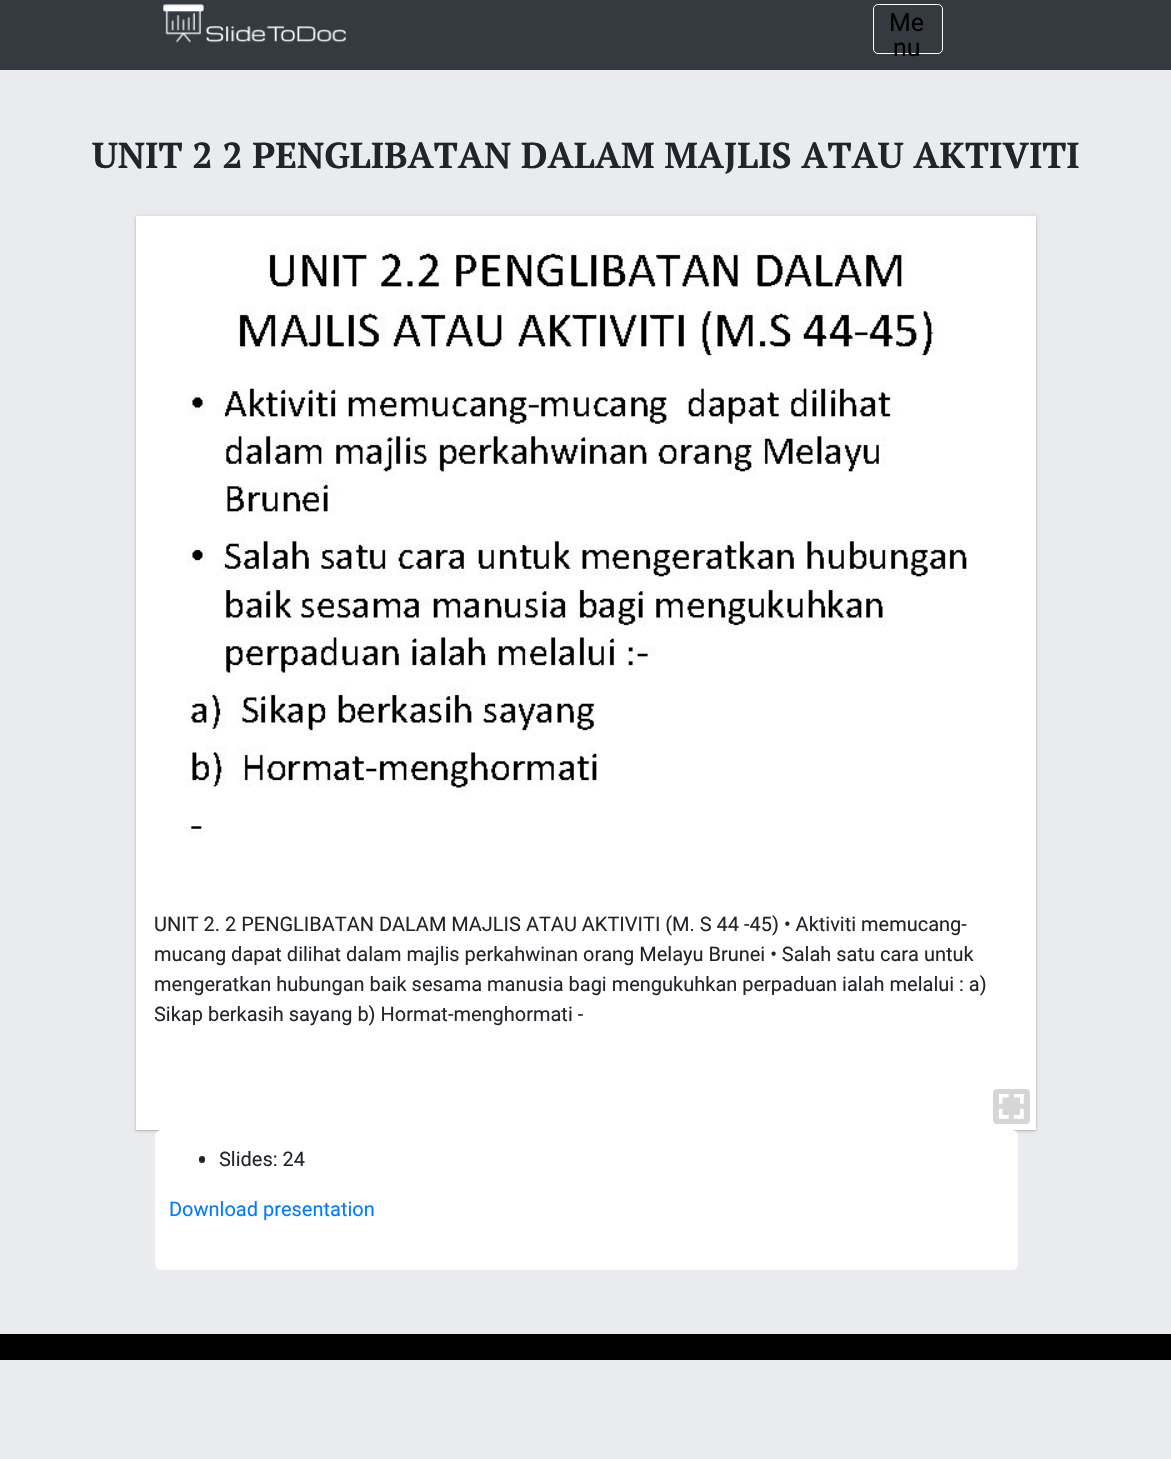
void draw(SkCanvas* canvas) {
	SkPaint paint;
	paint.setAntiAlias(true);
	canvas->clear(0xffe9ebee);
	paint.setColor(0xff343a40);
	canvas->drawRect(SkRect::MakeXYWH(0, 0, 1171, 70), paint);
	canvas->drawImageRect(SkImages::DeferredFromEncodedData(SkData::MakeFromFileName("img1.png")), SkRect::MakeXYWH(163, 4, 183, 39), SkSamplingOptions());
	paint.setStroke(true);
	paint.setStrokeWidth(1);
	paint.setColor(0xffffffff);
	canvas->drawRoundRect(SkRect::MakeXYWH(873.5, 4.5, 69, 49), 4.5, 4.5, paint);
	SkFont f1(fontMgr->matchFamilyStyle("Roboto", SkFontStyle::Normal()), 25);
	f1.setSubpixel(true);
	paint.setStroke(false);
	paint.setColor(0xff000000);
	canvas->drawString("Me", 889, 31, f1, paint);
	canvas->drawString("nu", 893, 56, f1, paint);
	paint.setColor(0xffededed);
	canvas->drawRect(SkRect::MakeXYWH(0, 189, 1171, 1), paint);
	SkFont f2(fontMgr->matchFamilyStyle("PT Serif", SkFontStyle::Bold()), 36);
	f2.setSubpixel(true);
	paint.setColor(0xff212529);
	canvas->drawString("UNIT 2 2 PENGLIBATAN DALAM MAJLIS ATAU AKTIVITI", 92, 168, f2, paint);
	paint.setColor(0x1a000000);
	paint.setMaskFilter(SkMaskFilter::MakeBlur(kNormal_SkBlurStyle, 2));
	canvas->drawRect(SkRect::MakeXYWH(136, 216, 900, 914), paint);
	paint.setMaskFilter(nullptr);
	paint.setColor(0x33000000);
	paint.setMaskFilter(SkMaskFilter::MakeBlur(kNormal_SkBlurStyle, 1));
	canvas->drawRect(SkRect::MakeXYWH(136, 218, 900, 913), paint);
	paint.setMaskFilter(nullptr);
	paint.setColor(0xffffffff);
	canvas->drawRect(SkRect::MakeXYWH(136, 216, 900, 914), paint);
	canvas->drawImageRect(SkImages::DeferredFromEncodedData(SkData::MakeFromFileName("img2.png")), SkRect::MakeXYWH(186, 246, 781, 589), SkSamplingOptions());
	SkFont f3(fontMgr->matchFamilyStyle("Roboto", SkFontStyle::Normal()), 20);
	f3.setSubpixel(true);
	paint.setColor(0xff212529);
	canvas->drawString("UNIT 2. 2 PENGLIBATAN DALAM MAJLIS ATAU AKTIVITI (M. S 44 -45) • Aktiviti memucang-", 154, 931, f3, paint);
	canvas->drawString("mucang dapat dilihat dalam majlis perkahwinan orang Melayu Brunei • Salah satu cara untuk", 154, 961, f3, paint);
	canvas->drawString("mengeratkan hubungan baik sesama manusia bagi mengukuhkan perpaduan ialah melalui : a)", 154, 991, f3, paint);
	canvas->drawString("Sikap berkasih sayang b) Hormat-menghormati -", 154, 1021, f3, paint);
	paint.setColor(0xffd6d6d6);
	canvas->drawRoundRect(SkRect::MakeXYWH(993, 1089, 37, 35), 4, 4, paint);
	canvas->drawImageRect(SkImages::DeferredFromEncodedData(SkData::MakeFromFileName("img3.png")), SkRect::MakeXYWH(999, 1094, 25, 25), SkSamplingOptions());
	paint.setColor(0xffffffff);
	canvas->drawRoundRect(SkRect::MakeXYWH(155, 1130, 863, 140), 6, 6, paint);
	paint.setColor(0xff212529);
	canvas->drawRoundRect(SkRect::MakeXYWH(199, 1156, 6, 7), 3, 3, paint);
	canvas->drawString("Slides: 24", 219, 1166, f3, paint);
	paint.setColor(0xff007bff);
	canvas->drawString("Download presentation", 169, 1216, f3, paint);
	paint.setColor(0xff000000);
	canvas->drawRect(SkRect::MakeXYWH(0, 1334, 1171, 26), paint);
}
